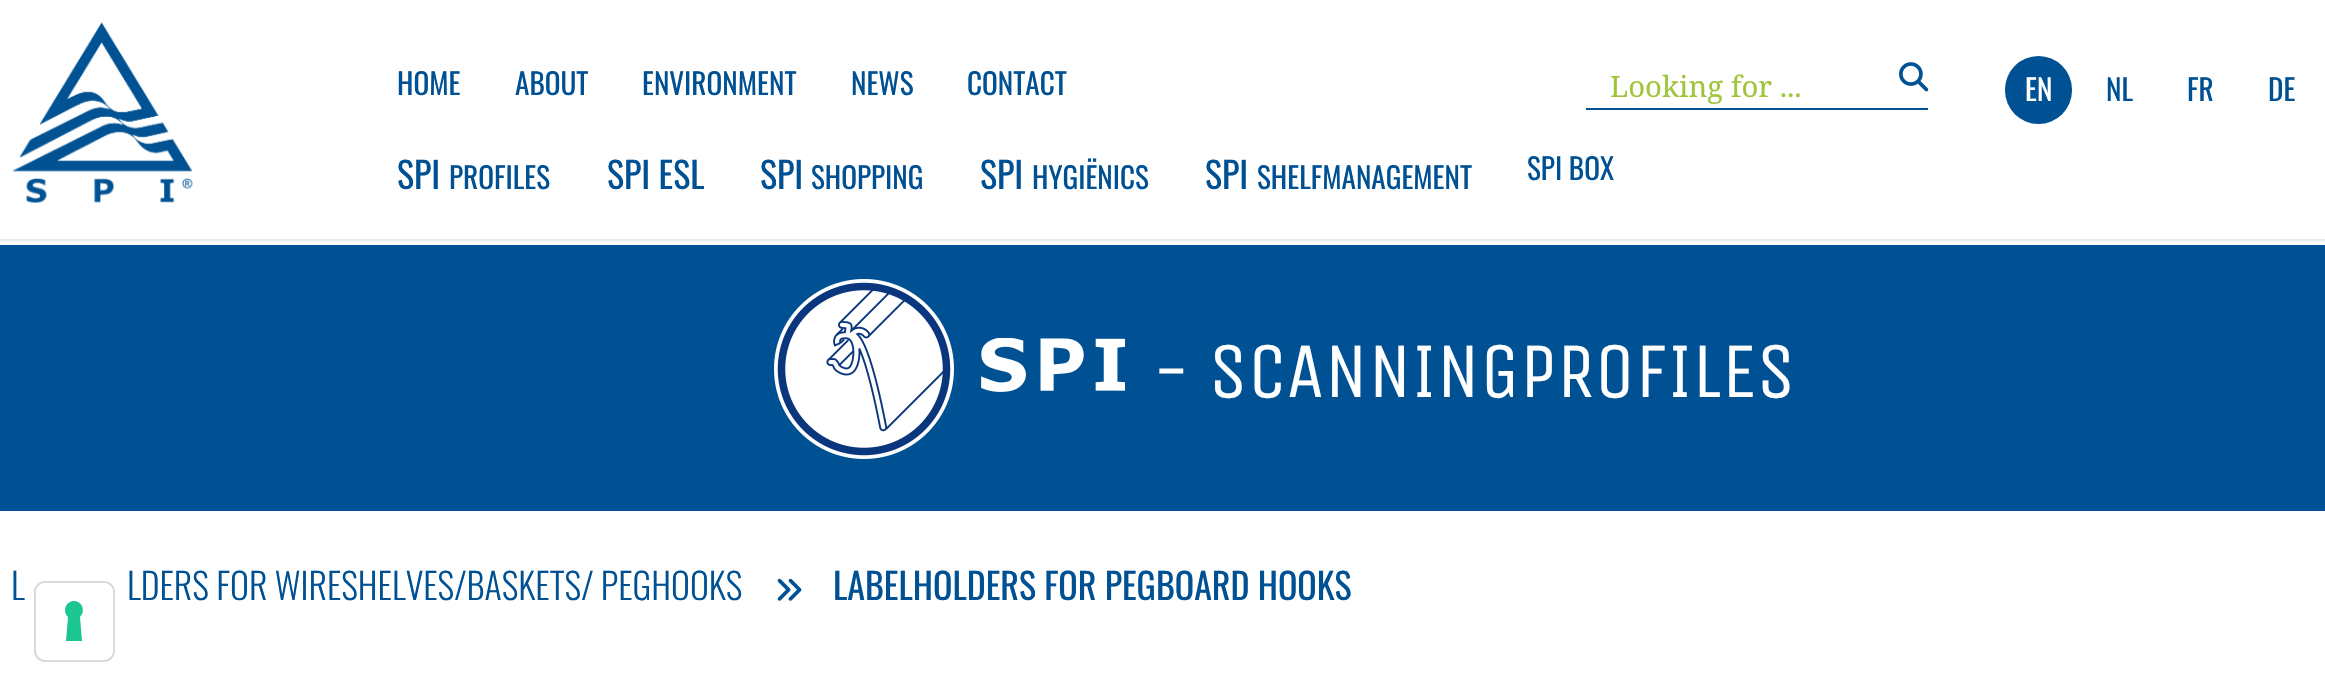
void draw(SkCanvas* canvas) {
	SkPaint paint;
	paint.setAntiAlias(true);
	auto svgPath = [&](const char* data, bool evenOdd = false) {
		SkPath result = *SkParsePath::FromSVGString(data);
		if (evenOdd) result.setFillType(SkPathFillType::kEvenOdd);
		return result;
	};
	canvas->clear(0xffffffff);
	paint.setColor(0xffeaeaea);
	canvas->drawRect(SkRect::MakeXYWH(0, 239, 2325, 2), paint);
	canvas->drawImageRect(SkImages::DeferredFromEncodedData(SkData::MakeFromFileName("img1.png")), SkRect::MakeXYWH(12, 22, 181, 181), SkSamplingOptions());
	SkFont f1(fontMgr->matchFamilyStyle("Oswald", SkFontStyle::Normal()), 29.25);
	f1.setSubpixel(true);
	paint.setColor(0xff005193);
	canvas->drawString("HOME", 397, 95, f1, paint);
	canvas->drawString("ABOUT", 515, 95, f1, paint);
	canvas->drawString("ENVIRONMENT", 642, 95, f1, paint);
	canvas->drawString("NEWS", 851, 95, f1, paint);
	canvas->drawString("CONTACT", 967, 95, f1, paint);
	canvas->drawRect(SkRect::MakeXYWH(1586, 108, 342, 2), paint);
	SkFont f2(fontMgr->matchFamilyStyle("Noto Serif", SkFontStyle::Normal()), 29.25);
	f2.setSubpixel(true);
	paint.setColor(0xff9fc63b);
	canvas->drawString("Looking for ...", 1610, 97, f2, paint);
	canvas->drawImageRect(SkImages::DeferredFromEncodedData(SkData::MakeFromFileName("img2.png")), SkRect::MakeXYWH(1899, 62, 30, 30), SkSamplingOptions());
	paint.setColor(0xff005193);
	canvas->drawRoundRect(SkRect::MakeXYWH(2005, 56, 67, 68), 33.5, 33.5, paint);
	paint.setColor(0xffffffff);
	canvas->drawString("EN", 2025, 101, f1, paint);
	paint.setColor(0xff005193);
	canvas->drawString("NL", 2106, 101, f1, paint);
	canvas->drawString("FR", 2187, 101, f1, paint);
	canvas->drawString("DE", 2268, 101, f1, paint);
	SkFont f3(fontMgr->matchFamilyStyle("Oswald", SkFontStyle::Normal()), 36);
	f3.setSubpixel(true);
	canvas->drawString("SPI", 397, 189, f3, paint);
	canvas->drawString("PROFILES", 449, 189, f1, paint);
	canvas->drawString("SPI ESL", 607, 189, f3, paint);
	canvas->drawString("SPI", 760, 189, f3, paint);
	canvas->drawString("SHOPPING", 811, 189, f1, paint);
	canvas->drawString("SPI", 980, 189, f3, paint);
	canvas->drawString("HYGIËNICS", 1032, 189, f1, paint);
	canvas->drawString("SPI", 1205, 189, f3, paint);
	canvas->drawString("SHELFMANAGEMENT", 1257, 189, f1, paint);
	canvas->drawString("SPI BOX", 1527, 180, f1, paint);
	canvas->drawRect(SkRect::MakeXYWH(0, 245, 2325, 266), paint);
	canvas->drawImageRect(SkImages::DeferredFromEncodedData(SkData::MakeFromFileName("img3.png")), SkRect::MakeXYWH(774, 279, 180, 180), SkSamplingOptions());
	canvas->drawImageRect(SkImages::DeferredFromEncodedData(SkData::MakeFromFileName("img4.png")), SkRect::MakeXYWH(981, 338, 144, 54), SkSamplingOptions());
	SkFont f4(fontMgr->matchFamilyStyle("Unica One", SkFontStyle::Normal()), 78.75);
	f4.setSubpixel(true);
	paint.setColor(0xffffffff);
	canvas->drawString("- SCANNINGPROFILES", 1152, 397, f4, paint);
	SkFont f5(fontMgr->matchFamilyStyle("Oswald", SkFontStyle(300, SkFontStyle::kNormal_Width, SkFontStyle::kUpright_Slant)), 36);
	f5.setSubpixel(true);
	paint.setColor(0xff005193);
	canvas->drawString("L", 11, 600, f5, paint);
	canvas->drawString("LDERS FOR WIRESHELVES/BASKETS/ PEGHOOKS", 127, 600, f5, paint);
	canvas->drawImageRect(SkImages::DeferredFromEncodedData(SkData::MakeFromFileName("img5.png")), SkRect::MakeXYWH(777, 578, 25, 23), SkSamplingOptions());
	canvas->drawString("LABELHOLDERS FOR PEGBOARD HOOKS", 833, 600, f3, paint);
	paint.setStroke(true);
	paint.setStrokeWidth(2);
	paint.setColor(0x26000000);
	canvas->drawRoundRect(SkRect::MakeXYWH(35, 582, 79, 79), 10, 10, paint);
	paint.setStroke(false);
	paint.setColor(0xffffffff);
	canvas->drawRoundRect(SkRect::MakeXYWH(36, 583, 77, 76), 9, 9, paint);
	paint.setColor(0xff1cc691);
	canvas->drawPath(svgPath("M74 601C82 601 86 611 80 617L82 641H66L68 617C62 611 66 601 74 601Z", true), paint);
}
